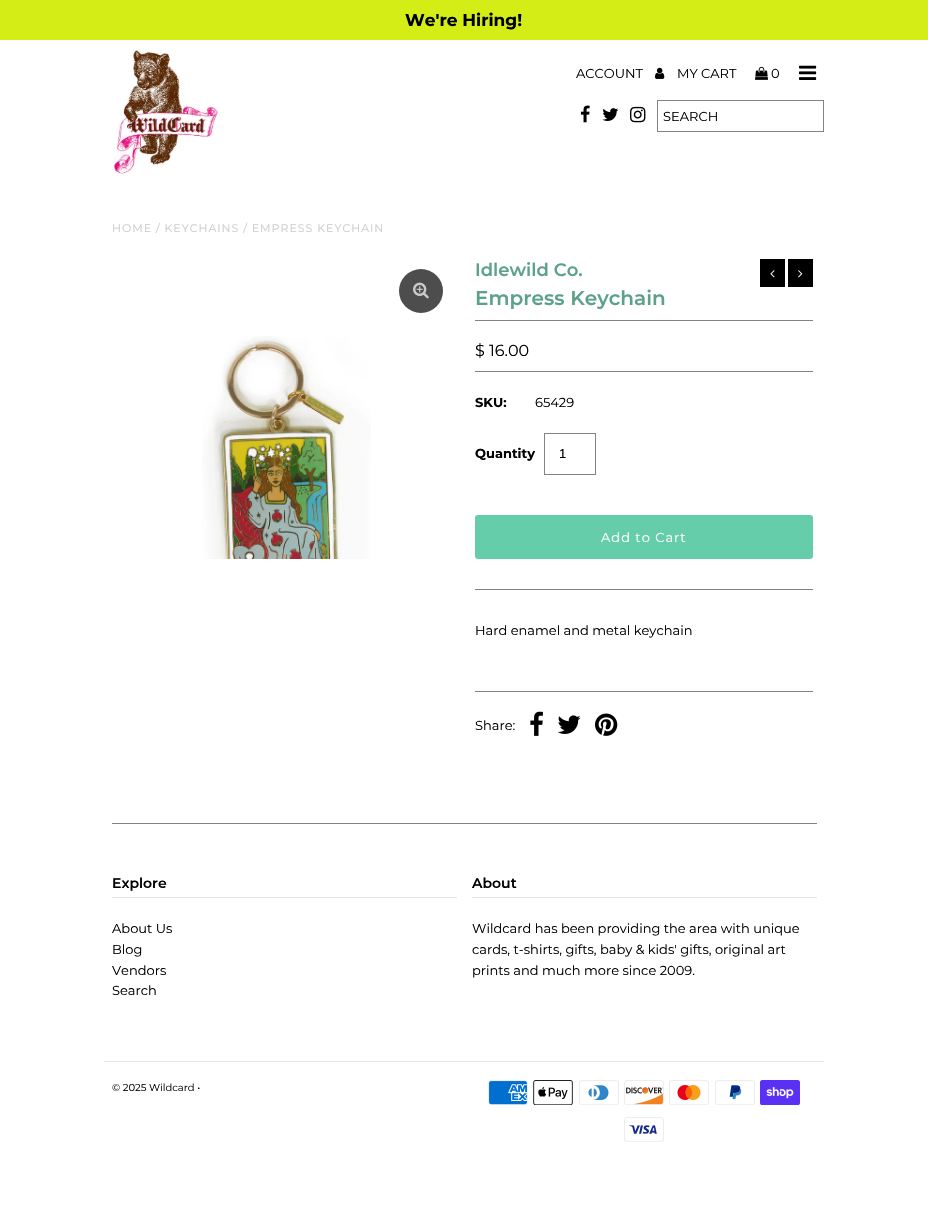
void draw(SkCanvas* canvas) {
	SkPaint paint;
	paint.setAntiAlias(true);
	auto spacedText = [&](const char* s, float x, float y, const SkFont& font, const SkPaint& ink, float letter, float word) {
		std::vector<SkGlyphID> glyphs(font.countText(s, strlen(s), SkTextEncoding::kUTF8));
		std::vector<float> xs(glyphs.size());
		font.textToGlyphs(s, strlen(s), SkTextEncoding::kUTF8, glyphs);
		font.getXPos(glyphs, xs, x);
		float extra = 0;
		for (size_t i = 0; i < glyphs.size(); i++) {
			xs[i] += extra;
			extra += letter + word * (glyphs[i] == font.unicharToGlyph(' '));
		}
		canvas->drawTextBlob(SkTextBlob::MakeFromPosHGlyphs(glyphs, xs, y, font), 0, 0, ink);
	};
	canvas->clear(0xffffffff);
	paint.setColor(0xffd4ed16);
	canvas->drawRect(SkRect::MakeXYWH(0, 0, 928, 40), paint);
	SkFont f1(fontMgr->matchFamilyStyle("Montserrat", SkFontStyle::Bold()), 17);
	f1.setSubpixel(true);
	paint.setColor(0xff000000);
	canvas->drawString("We're Hiring!", 405, 26, f1, paint);
	canvas->drawImageRect(SkImages::DeferredFromEncodedData(SkData::MakeFromFileName("img1.png")), SkRect::MakeXYWH(112, 50, 107, 124), SkSamplingOptions());
	SkFont f2(fontMgr->matchFamilyStyle("Montserrat", SkFontStyle::Normal()), 13);
	f2.setSubpixel(true);
	canvas->drawString("ACCOUNT", 576, 78, f2, paint);
	canvas->drawImageRect(SkImages::DeferredFromEncodedData(SkData::MakeFromFileName("img2.png")), SkRect::MakeXYWH(655, 67, 10, 12), SkSamplingOptions());
	canvas->drawString("MY CART", 677, 78, f2, paint);
	canvas->drawImageRect(SkImages::DeferredFromEncodedData(SkData::MakeFromFileName("img3.png")), SkRect::MakeXYWH(755, 66, 13, 14), SkSamplingOptions());
	canvas->drawString("0", 771, 78, f2, paint);
	canvas->drawImageRect(SkImages::DeferredFromEncodedData(SkData::MakeFromFileName("img4.png")), SkRect::MakeXYWH(799, 65, 18, 15), SkSamplingOptions());
	canvas->drawImageRect(SkImages::DeferredFromEncodedData(SkData::MakeFromFileName("img5.png")), SkRect::MakeXYWH(580, 105, 10, 18), SkSamplingOptions());
	canvas->drawImageRect(SkImages::DeferredFromEncodedData(SkData::MakeFromFileName("img6.png")), SkRect::MakeXYWH(602, 108, 17, 13), SkSamplingOptions());
	canvas->drawImageRect(SkImages::DeferredFromEncodedData(SkData::MakeFromFileName("img7.png")), SkRect::MakeXYWH(630, 106, 16, 17), SkSamplingOptions());
	paint.setStroke(true);
	paint.setStrokeWidth(1);
	paint.setColor(0xff838383);
	canvas->drawRect(SkRect::MakeXYWH(657.5, 100.5, 166, 31), paint);
	paint.setStroke(false);
	paint.setColor(0xff000000);
	canvas->drawString("SEARCH", 663, 121, f2, paint);
	SkFont f3(fontMgr->matchFamilyStyle("Montserrat", SkFontStyle::Normal()), 11);
	f3.setSubpixel(true);
	paint.setColor(0xffcccccc);
	spacedText("HOME / KEYCHAINS / EMPRESS KEYCHAIN", 112, 232, f3, paint, 1, 0);
	paint.setColor(0xff4d4d4d);
	canvas->drawCircle(421, 291, 22, paint);
	canvas->drawImageRect(SkImages::DeferredFromEncodedData(SkData::MakeFromFileName("img8.png")), SkRect::MakeXYWH(413, 282, 16, 17), SkSamplingOptions());
	canvas->drawImageRect(SkImages::DeferredFromEncodedData(SkData::MakeFromFileName("img9.png")), SkRect::MakeXYWH(202, 336, 169, 223), SkSamplingOptions());
	SkFont f4(fontMgr->matchFamilyStyle("Montserrat", SkFontStyle(600, SkFontStyle::kNormal_Width, SkFontStyle::kUpright_Slant)), 18);
	f4.setSubpixel(true);
	paint.setColor(0xff5ca189);
	canvas->drawString("Idlewild Co.", 475, 276, f4, paint);
	paint.setColor(0xff000000);
	canvas->drawRect(SkRect::MakeXYWH(760, 259, 25, 28), paint);
	canvas->drawImageRect(SkImages::DeferredFromEncodedData(SkData::MakeFromFileName("img10.png")), SkRect::MakeXYWH(770, 270, 5, 8), SkSamplingOptions());
	canvas->drawRect(SkRect::MakeXYWH(788, 259, 25, 28), paint);
	canvas->drawImageRect(SkImages::DeferredFromEncodedData(SkData::MakeFromFileName("img11.png")), SkRect::MakeXYWH(798, 270, 5, 8), SkSamplingOptions());
	SkFont f5(fontMgr->matchFamilyStyle("Montserrat", SkFontStyle(600, SkFontStyle::kNormal_Width, SkFontStyle::kUpright_Slant)), 20);
	f5.setSubpixel(true);
	paint.setColor(0xff5ca189);
	canvas->drawString("Empress Keychain", 475, 305, f5, paint);
	paint.setColor(0xff838383);
	canvas->drawRect(SkRect::MakeXYWH(475, 320, 338, 1), paint);
	canvas->drawRect(SkRect::MakeXYWH(475, 589, 338, 1), paint);
	canvas->drawRect(SkRect::MakeXYWH(475, 371, 338, 1), paint);
	SkFont f6(fontMgr->matchFamilyStyle("Montserrat", SkFontStyle::Normal()), 16);
	f6.setSubpixel(true);
	paint.setColor(0xff000000);
	canvas->drawString("$ 16.00", 475, 356, f6, paint);
	SkFont f7(fontMgr->matchFamilyStyle("Montserrat", SkFontStyle::Bold()), 13);
	f7.setSubpixel(true);
	canvas->drawString("SKU:", 475, 407, f7, paint);
	canvas->drawString("65429", 535, 407, f2, paint);
	canvas->drawString("Quantity", 475, 458, f7, paint);
	paint.setStroke(true);
	paint.setColor(0xff838383);
	canvas->drawRect(SkRect::MakeXYWH(544.5, 433.5, 51, 41), paint);
	SkFont f8(fontMgr->matchFamilyStyle("Liberation Sans", SkFontStyle::Normal()), 13);
	f8.setSubpixel(true);
	paint.setStroke(false);
	paint.setColor(0xff000000);
	canvas->drawString("1", 559, 458, f8, paint);
	paint.setColor(0xff66cdaa);
	canvas->drawRoundRect(SkRect::MakeXYWH(475, 515, 338, 44), 3, 3, paint);
	paint.setColor(0xffffffff);
	spacedText("Add to Cart", 601, 542, f2, paint, 1, 0);
	paint.setColor(0xff000000);
	canvas->drawString("Hard enamel and metal keychain", 475, 635, f2, paint);
	paint.setColor(0xff838383);
	canvas->drawRect(SkRect::MakeXYWH(475, 691, 338, 1), paint);
	paint.setColor(0xff000000);
	canvas->drawString("Share:", 475, 730, f2, paint);
	canvas->drawImageRect(SkImages::DeferredFromEncodedData(SkData::MakeFromFileName("img12.png")), SkRect::MakeXYWH(530, 711, 13, 25), SkSamplingOptions());
	canvas->drawImageRect(SkImages::DeferredFromEncodedData(SkData::MakeFromFileName("img13.png")), SkRect::MakeXYWH(557, 715, 24, 19), SkSamplingOptions());
	canvas->drawImageRect(SkImages::DeferredFromEncodedData(SkData::MakeFromFileName("img14.png")), SkRect::MakeXYWH(595, 713, 23, 23), SkSamplingOptions());
	paint.setColor(0xff838383);
	canvas->drawRect(SkRect::MakeXYWH(112, 823, 705, 1), paint);
	paint.setColor(0xffe5e5e5);
	canvas->drawRect(SkRect::MakeXYWH(112, 897, 345, 1), paint);
	SkFont f9(fontMgr->matchFamilyStyle("Montserrat", SkFontStyle(600, SkFontStyle::kNormal_Width, SkFontStyle::kUpright_Slant)), 14);
	f9.setSubpixel(true);
	paint.setColor(0xff000000);
	canvas->drawString("Explore", 112, 888, f9, paint);
	canvas->drawString("About Us", 112, 933, f2, paint);
	canvas->drawString("Blog", 112, 954, f2, paint);
	canvas->drawString("Vendors", 112, 975, f2, paint);
	canvas->drawString("Search", 112, 995, f2, paint);
	paint.setColor(0xffe5e5e5);
	canvas->drawRect(SkRect::MakeXYWH(472, 897, 345, 1), paint);
	paint.setColor(0xff000000);
	canvas->drawString("About", 472, 888, f9, paint);
	canvas->drawString("Wildcard has been providing the area with unique", 472, 933, f2, paint);
	canvas->drawString("cards, t-shirts, gifts, baby & kids' gifts, original art", 472, 954, f2, paint);
	canvas->drawString("prints and much more since 2009.", 472, 975, f2, paint);
	paint.setColor(0xffe5e5e5);
	canvas->drawRect(SkRect::MakeXYWH(104, 1061, 720, 1), paint);
	SkFont f10(fontMgr->matchFamilyStyle("Montserrat", SkFontStyle::Normal()), 10);
	f10.setSubpixel(true);
	paint.setColor(0xff000000);
	canvas->drawString("© 2025 Wildcard •", 112, 1091, f10, paint);
	canvas->drawImageRect(SkImages::DeferredFromEncodedData(SkData::MakeFromFileName("img15.png")), SkRect::MakeXYWH(488, 1080, 40, 25), SkSamplingOptions());
	canvas->drawImageRect(SkImages::DeferredFromEncodedData(SkData::MakeFromFileName("img16.png")), SkRect::MakeXYWH(533, 1080, 40, 25), SkSamplingOptions());
	canvas->drawImageRect(SkImages::DeferredFromEncodedData(SkData::MakeFromFileName("img17.png")), SkRect::MakeXYWH(579, 1080, 40, 25), SkSamplingOptions());
	canvas->drawImageRect(SkImages::DeferredFromEncodedData(SkData::MakeFromFileName("img18.png")), SkRect::MakeXYWH(624, 1080, 40, 25), SkSamplingOptions());
	canvas->drawImageRect(SkImages::DeferredFromEncodedData(SkData::MakeFromFileName("img19.png")), SkRect::MakeXYWH(669, 1080, 40, 25), SkSamplingOptions());
	canvas->drawImageRect(SkImages::DeferredFromEncodedData(SkData::MakeFromFileName("img20.png")), SkRect::MakeXYWH(715, 1080, 40, 25), SkSamplingOptions());
	canvas->drawImageRect(SkImages::DeferredFromEncodedData(SkData::MakeFromFileName("img21.png")), SkRect::MakeXYWH(760, 1080, 40, 25), SkSamplingOptions());
	canvas->drawImageRect(SkImages::DeferredFromEncodedData(SkData::MakeFromFileName("img22.png")), SkRect::MakeXYWH(624, 1117, 40, 25), SkSamplingOptions());
}
